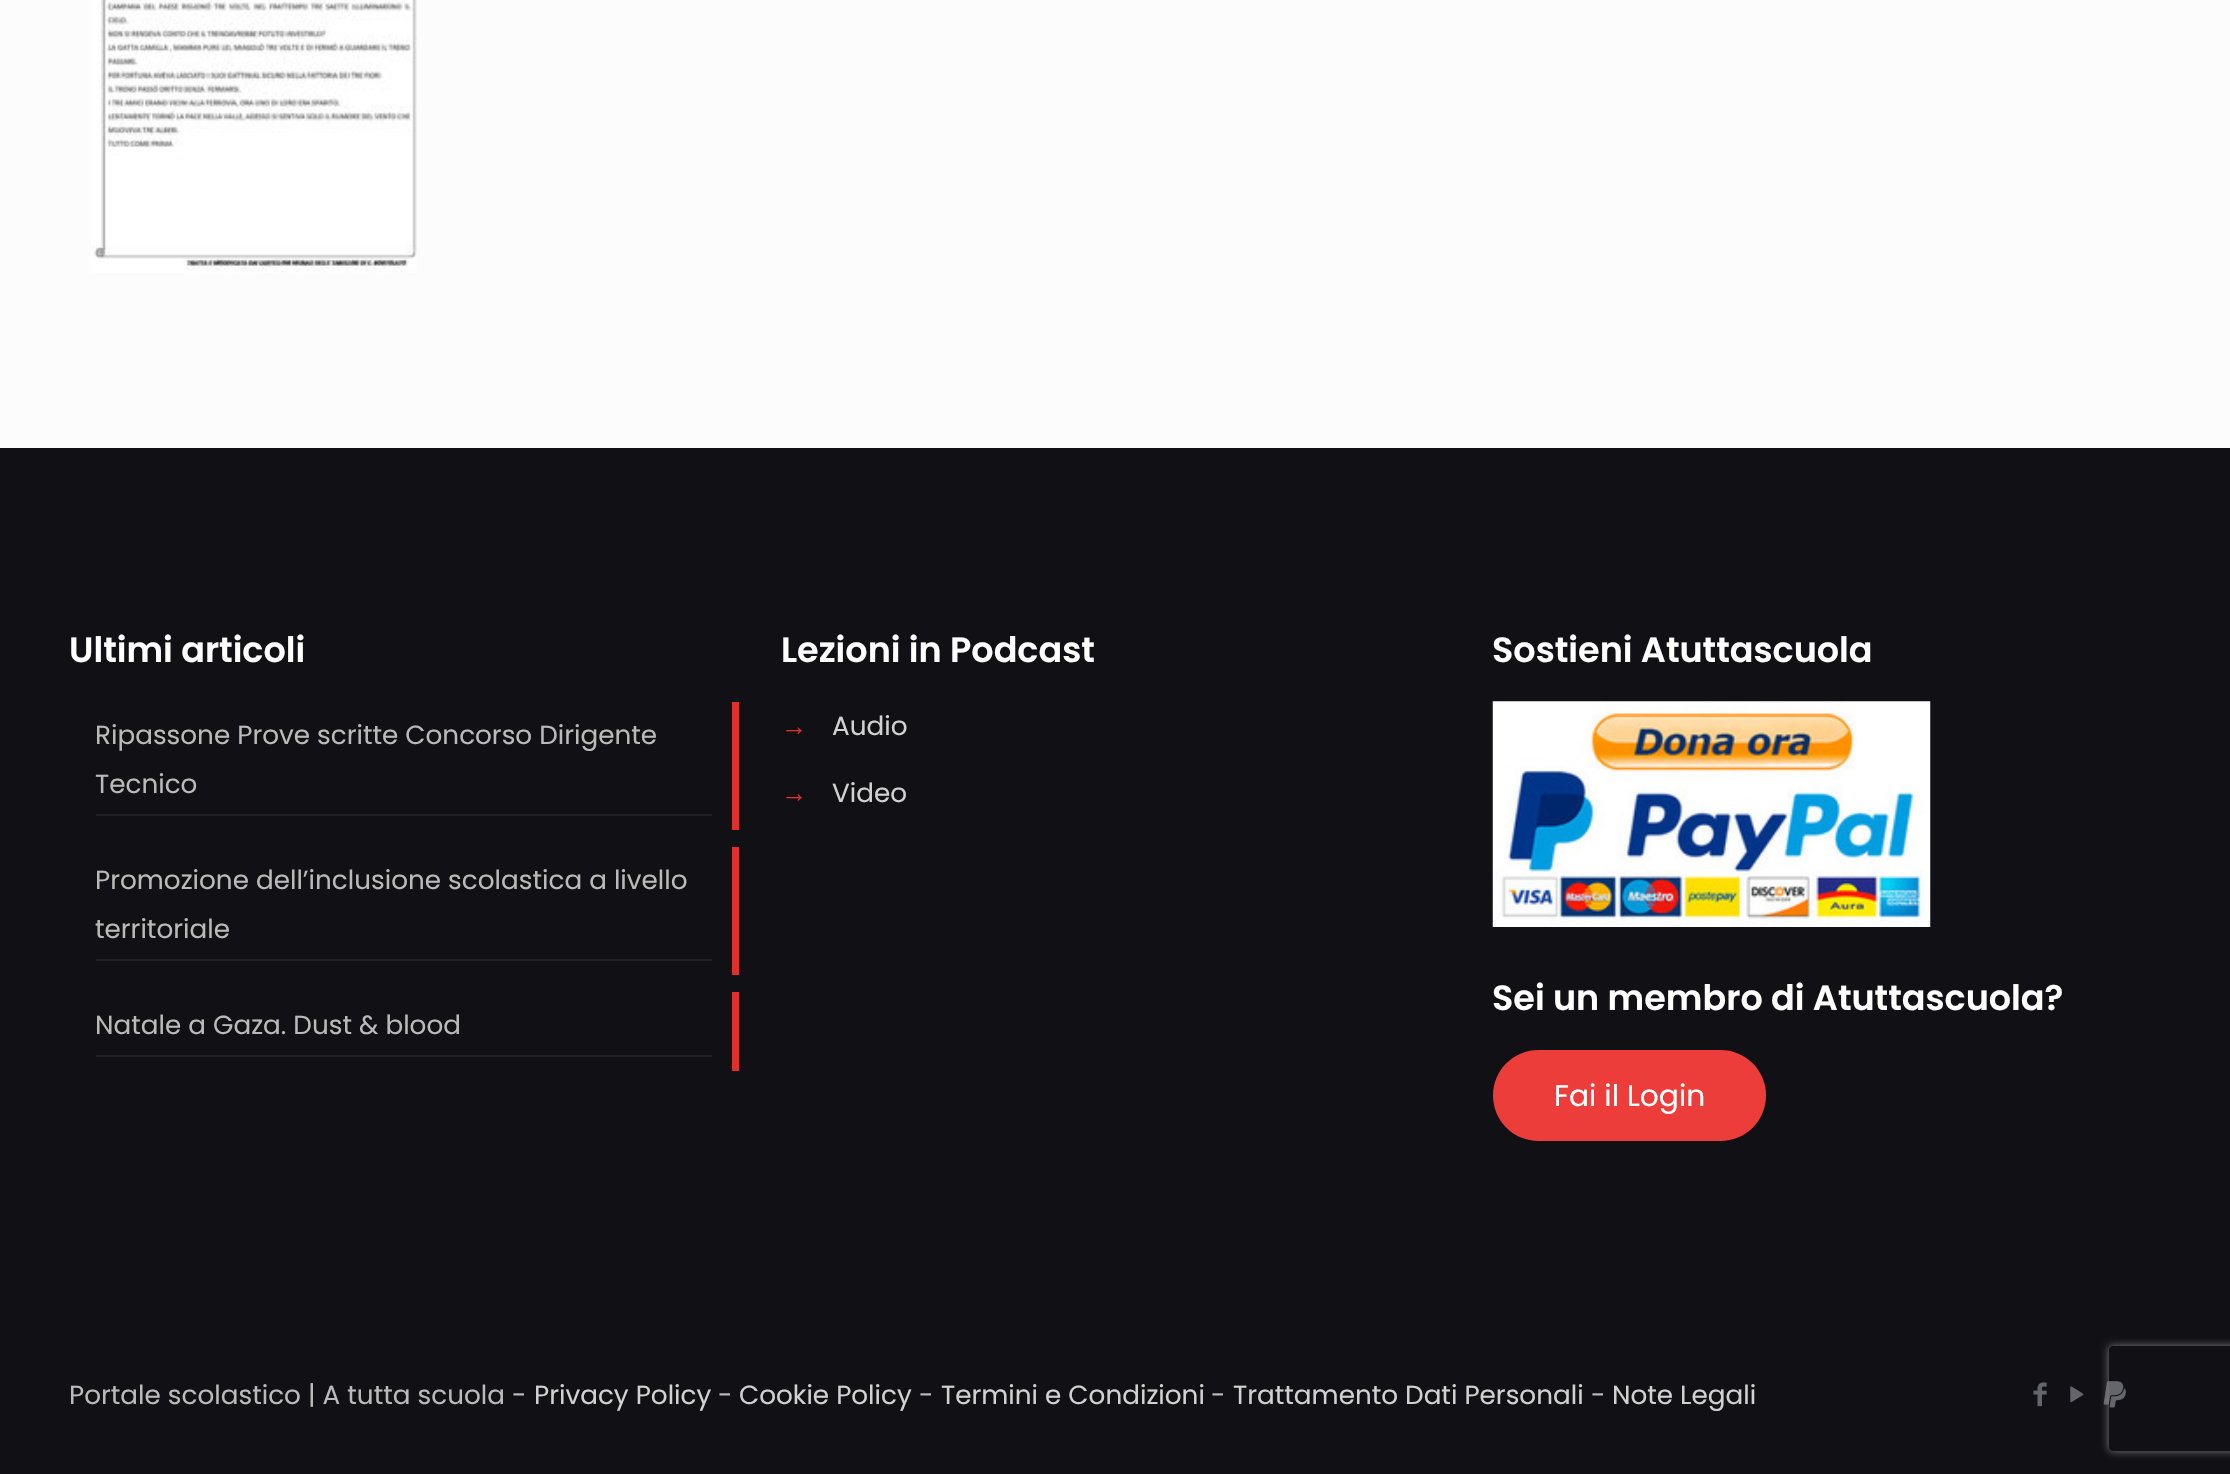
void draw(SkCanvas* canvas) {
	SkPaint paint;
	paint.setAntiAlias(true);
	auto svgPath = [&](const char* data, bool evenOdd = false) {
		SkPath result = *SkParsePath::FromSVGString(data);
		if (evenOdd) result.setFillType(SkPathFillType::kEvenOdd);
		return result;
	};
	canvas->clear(0xfffcfcfc);
	canvas->drawImageRect(SkImages::DeferredFromEncodedData(SkData::MakeFromFileName("img1.png")), SkRect::MakeXYWH(91, 0, 326, 273), SkSamplingOptions());
	paint.setColor(0xff101015);
	canvas->drawRect(SkRect::MakeXYWH(0, 448, 2230, 1026), paint);
	SkFont f1(fontMgr->matchFamilyStyle("Poppins", SkFontStyle(600, SkFontStyle::kNormal_Width, SkFontStyle::kUpright_Slant)), 35);
	f1.setSubpixel(true);
	paint.setColor(0xffffffff);
	canvas->drawString("Ultimi articoli", 69, 662, f1, paint);
	paint.setColor(0xff212126);
	canvas->drawRect(SkRect::MakeXYWH(96, 814, 616, 2), paint);
	SkFont f2(fontMgr->matchFamilyStyle("Poppins", SkFontStyle::Normal()), 26.25);
	f2.setSubpixel(true);
	paint.setColor(0xffbababa);
	canvas->drawString("Ripassone Prove scritte Concorso Dirigente", 95, 744, f2, paint);
	canvas->drawString("Tecnico", 95, 793, f2, paint);
	paint.setColor(0xffdf302d);
	canvas->drawRect(SkRect::MakeXYWH(732, 702, 7, 128), paint);
	paint.setColor(0xff212126);
	canvas->drawRect(SkRect::MakeXYWH(96, 959, 616, 2), paint);
	paint.setColor(0xffbababa);
	canvas->drawString("Promozione dell’inclusione scolastica a livello", 95, 889, f2, paint);
	canvas->drawString("territoriale", 95, 938, f2, paint);
	paint.setColor(0xffdf302d);
	canvas->drawRect(SkRect::MakeXYWH(732, 847, 7, 128), paint);
	paint.setColor(0xff212126);
	canvas->drawRect(SkRect::MakeXYWH(96, 1055, 616, 2), paint);
	paint.setColor(0xffbababa);
	canvas->drawString("Natale a Gaza. Dust & blood", 95, 1034, f2, paint);
	paint.setColor(0xffdf302d);
	canvas->drawRect(SkRect::MakeXYWH(732, 992, 7, 79), paint);
	paint.setColor(0xffffffff);
	canvas->drawString("Lezioni in Podcast", 781, 662, f1, paint);
	SkFont f3(fontMgr->matchFamilyStyle("Liberation Sans", SkFontStyle::Normal()), 26.25);
	f3.setSubpixel(true);
	paint.setColor(0xffdf302d);
	canvas->drawString("→", 781, 735, f3, paint);
	paint.setColor(0xffd1d1d1);
	canvas->drawString("Audio", 832, 735, f2, paint);
	paint.setColor(0xffdf302d);
	canvas->drawString("→", 781, 802, f3, paint);
	paint.setColor(0xffd1d1d1);
	canvas->drawString("Video", 832, 802, f2, paint);
	paint.setColor(0xffffffff);
	canvas->drawString("Sostieni Atuttascuola", 1492, 662, f1, paint);
	canvas->drawImageRect(SkImages::DeferredFromEncodedData(SkData::MakeFromFileName("img2.png")), SkRect::MakeXYWH(1492, 701, 439, 226), SkSamplingOptions());
	canvas->drawString("Sei un membro di Atuttascuola?", 1492, 1010, f1, paint);
	paint.setColor(0xffec3d3a);
	canvas->drawRoundRect(SkRect::MakeXYWH(1493, 1050, 273, 91), 45.5, 45.5, paint);
	SkFont f4(fontMgr->matchFamilyStyle("Poppins", SkFontStyle::Normal()), 29.75);
	f4.setSubpixel(true);
	paint.setColor(0xffffffff);
	canvas->drawString("Fai il Login", 1554, 1106, f4, paint);
	paint.setColor(0xffbababa);
	canvas->drawString("Portale scolastico | A tutta scuola -", 69, 1404, f2, paint);
	paint.setColor(0xffd1d1d1);
	canvas->drawString("Privacy Policy", 534, 1404, f2, paint);
	paint.setColor(0xffbababa);
	canvas->drawString("-", 718, 1404, f2, paint);
	paint.setColor(0xffd1d1d1);
	canvas->drawString("Cookie Policy", 739, 1404, f2, paint);
	paint.setColor(0xffbababa);
	canvas->drawString("-", 919, 1404, f2, paint);
	paint.setColor(0xffd1d1d1);
	canvas->drawString("Termini e Condizioni", 941, 1404, f2, paint);
	paint.setColor(0xffbababa);
	canvas->drawString("-", 1211, 1404, f2, paint);
	paint.setColor(0xffd1d1d1);
	canvas->drawString("Trattamento Dati Personali", 1233, 1404, f2, paint);
	paint.setColor(0xffbababa);
	canvas->drawString("-", 1591, 1404, f2, paint);
	paint.setColor(0xffd1d1d1);
	canvas->drawString("Note Legali", 1612, 1404, f2, paint);
	canvas->drawImageRect(SkImages::DeferredFromEncodedData(SkData::MakeFromFileName("img3.png")), SkRect::MakeXYWH(2033, 1382, 14, 25), SkSamplingOptions());
	canvas->drawImageRect(SkImages::DeferredFromEncodedData(SkData::MakeFromFileName("img4.png")), SkRect::MakeXYWH(2070, 1386, 14, 17), SkSamplingOptions());
	canvas->drawImageRect(SkImages::DeferredFromEncodedData(SkData::MakeFromFileName("img5.png")), SkRect::MakeXYWH(2103, 1381, 23, 27), SkSamplingOptions());
	canvas->save();
	canvas->clipPath(svgPath("M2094 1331H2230V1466H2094ZM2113 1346H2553C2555 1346 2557 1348 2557 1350V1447C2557 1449 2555 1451 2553 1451H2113C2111 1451 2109 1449 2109 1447V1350C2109 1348 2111 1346 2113 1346Z", true), true);
	paint.setColor(0xff808080);
	paint.setMaskFilter(SkMaskFilter::MakeBlur(kNormal_SkBlurStyle, 4.5));
	canvas->drawRoundRect(SkRect::MakeXYWH(2109, 1346, 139, 105), 4, 4, paint);
	paint.setMaskFilter(nullptr);
	canvas->restore();
}
